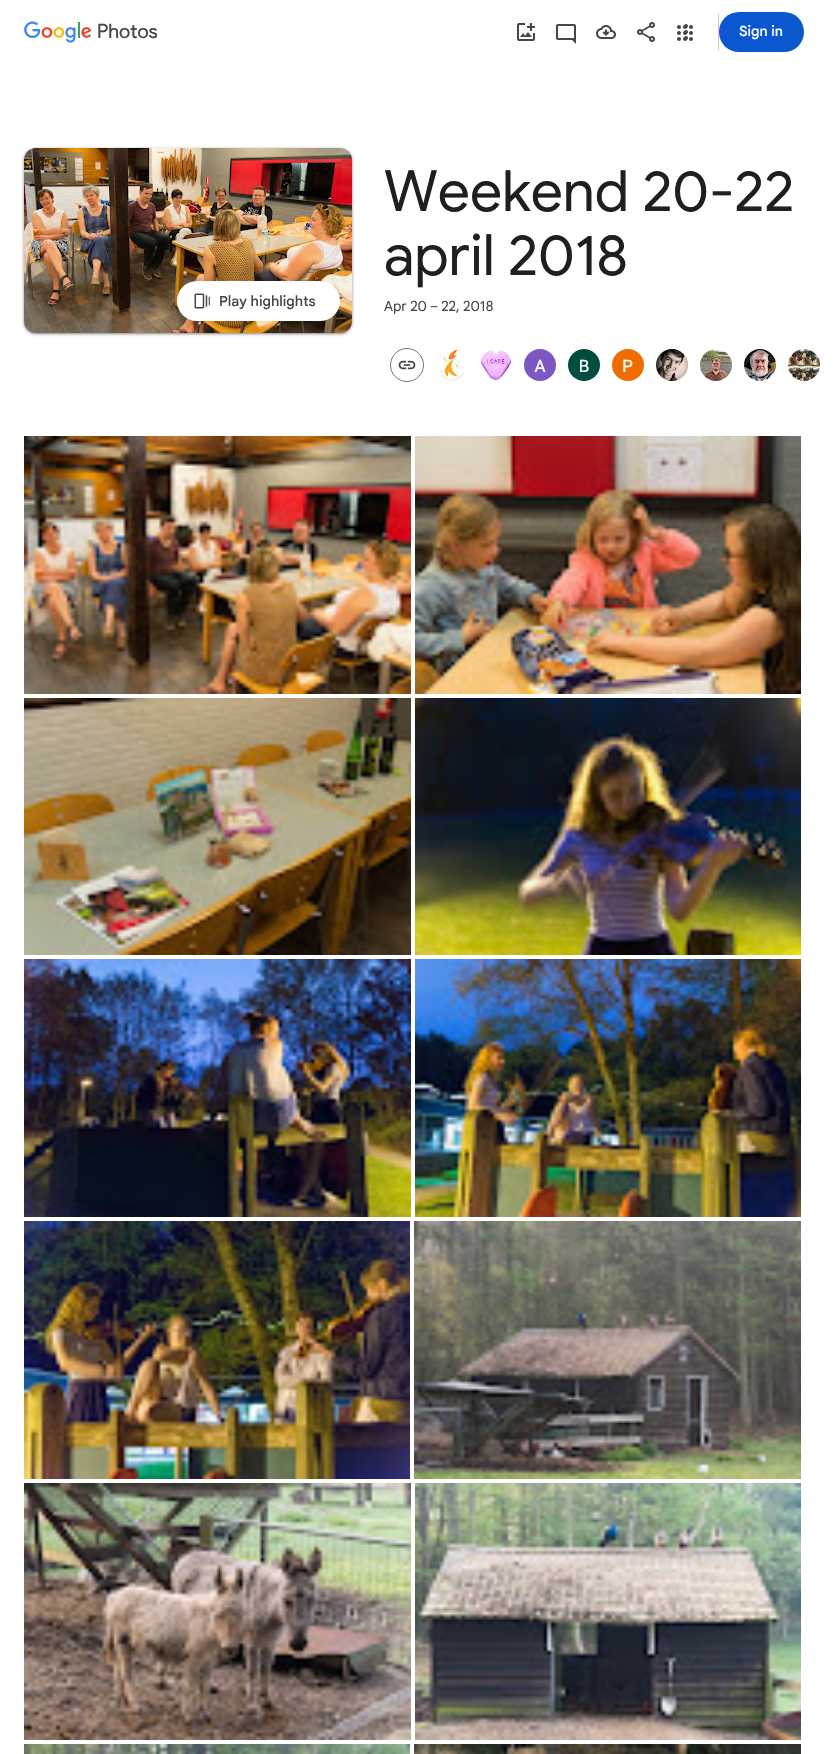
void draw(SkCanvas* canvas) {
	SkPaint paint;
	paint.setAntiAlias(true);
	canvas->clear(0xffffffff);
	canvas->drawImageRect(SkImages::DeferredFromEncodedData(SkData::MakeFromFileName("img1.png")), SkRect::MakeXYWH(24, 21, 68, 22), SkSamplingOptions());
	SkFont f1(fontMgr->matchFamilyStyle("Product Sans", SkFontStyle::Normal()), 20);
	f1.setSubpixel(true);
	paint.setColor(0xff444746);
	canvas->drawString("Photos", 97, 38, f1, paint);
	canvas->drawImageRect(SkImages::DeferredFromEncodedData(SkData::MakeFromFileName("img2.png")), SkRect::MakeXYWH(517, 23, 18, 18), SkSamplingOptions());
	canvas->drawImageRect(SkImages::DeferredFromEncodedData(SkData::MakeFromFileName("img3.png")), SkRect::MakeXYWH(556, 24, 20, 20), SkSamplingOptions());
	canvas->drawImageRect(SkImages::DeferredFromEncodedData(SkData::MakeFromFileName("img4.png")), SkRect::MakeXYWH(596, 25, 20, 14), SkSamplingOptions());
	canvas->drawImageRect(SkImages::DeferredFromEncodedData(SkData::MakeFromFileName("img5.png")), SkRect::MakeXYWH(637, 22, 18, 20), SkSamplingOptions());
	canvas->drawImageRect(SkImages::DeferredFromEncodedData(SkData::MakeFromFileName("img6.png")), SkRect::MakeXYWH(684, 24, 4, 16), SkSamplingOptions());
	paint.setColor(0xffc4c7c5);
	canvas->drawRect(SkRect::MakeXYWH(718, 14, 1, 36), paint);
	paint.setColor(0x26000000);
	paint.setMaskFilter(SkMaskFilter::MakeBlur(kNormal_SkBlurStyle, 1.5));
	canvas->drawRoundRect(SkRect::MakeXYWH(23, 148, 330, 187), 13, 13, paint);
	paint.setMaskFilter(nullptr);
	paint.setColor(0x4d000000);
	paint.setMaskFilter(SkMaskFilter::MakeBlur(kNormal_SkBlurStyle, 1));
	canvas->drawRoundRect(SkRect::MakeXYWH(24, 149, 328, 185), 12, 12, paint);
	paint.setMaskFilter(nullptr);
	canvas->drawImageRect(SkImages::DeferredFromEncodedData(SkData::MakeFromFileName("img7.png")), SkRect::MakeXYWH(24, 148, 328, 185), SkSamplingOptions());
	paint.setColor(0xffffffff);
	canvas->drawRoundRect(SkRect::MakeXYWH(177, 281, 163, 40), 20, 20, paint);
	canvas->drawImageRect(SkImages::DeferredFromEncodedData(SkData::MakeFromFileName("img8.png")), SkRect::MakeXYWH(194, 293, 16, 16), SkSamplingOptions());
	SkFont f2(fontMgr->matchFamilyStyle("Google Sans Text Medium", SkFontStyle(500, SkFontStyle::kNormal_Width, SkFontStyle::kUpright_Slant)), 14);
	f2.setSubpixel(true);
	paint.setColor(0xff444746);
	canvas->drawString("Play highlights", 219, 306, f2, paint);
	SkFont f3(fontMgr->matchFamilyStyle("Google Sans", SkFontStyle::Normal()), 57);
	f3.setSubpixel(true);
	paint.setColor(0xff1f1f1f);
	canvas->drawString("Weekend 20-22", 384, 211, f3, paint);
	canvas->drawString("april 2018", 384, 275, f3, paint);
	SkFont f4(fontMgr->matchFamilyStyle("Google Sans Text", SkFontStyle::Normal()), 14);
	f4.setSubpixel(true);
	paint.setColor(0xff444746);
	canvas->drawString("Apr 20 – 22, 2018", 384, 311, f4, paint);
	paint.setStroke(true);
	paint.setStrokeWidth(1);
	paint.setColor(0xff747775);
	canvas->drawCircle(407, 365, 16.5, paint);
	canvas->drawImageRect(SkImages::DeferredFromEncodedData(SkData::MakeFromFileName("img9.png")), SkRect::MakeXYWH(398, 360, 18, 10), SkSamplingOptions());
	canvas->drawImageRect(SkImages::DeferredFromEncodedData(SkData::MakeFromFileName("img10.png")), SkRect::MakeXYWH(436, 349, 29, 32), SkSamplingOptions());
	canvas->drawImageRect(SkImages::DeferredFromEncodedData(SkData::MakeFromFileName("img11.png")), SkRect::MakeXYWH(480, 350, 32, 30), SkSamplingOptions());
	canvas->drawImageRect(SkImages::DeferredFromEncodedData(SkData::MakeFromFileName("img12.png")), SkRect::MakeXYWH(524, 349, 32, 32), SkSamplingOptions());
	canvas->drawImageRect(SkImages::DeferredFromEncodedData(SkData::MakeFromFileName("img13.png")), SkRect::MakeXYWH(568, 349, 32, 32), SkSamplingOptions());
	canvas->drawImageRect(SkImages::DeferredFromEncodedData(SkData::MakeFromFileName("img14.png")), SkRect::MakeXYWH(612, 349, 32, 32), SkSamplingOptions());
	canvas->drawImageRect(SkImages::DeferredFromEncodedData(SkData::MakeFromFileName("img15.png")), SkRect::MakeXYWH(656, 349, 32, 32), SkSamplingOptions());
	canvas->drawImageRect(SkImages::DeferredFromEncodedData(SkData::MakeFromFileName("img16.png")), SkRect::MakeXYWH(700, 349, 32, 32), SkSamplingOptions());
	canvas->drawImageRect(SkImages::DeferredFromEncodedData(SkData::MakeFromFileName("img17.png")), SkRect::MakeXYWH(744, 349, 32, 32), SkSamplingOptions());
	canvas->drawImageRect(SkImages::DeferredFromEncodedData(SkData::MakeFromFileName("img18.png")), SkRect::MakeXYWH(788, 349, 32, 32), SkSamplingOptions());
	canvas->drawImageRect(SkImages::DeferredFromEncodedData(SkData::MakeFromFileName("img19.png")), SkRect::MakeXYWH(24, 436, 387, 258), SkSamplingOptions());
	canvas->drawImageRect(SkImages::DeferredFromEncodedData(SkData::MakeFromFileName("img20.png")), SkRect::MakeXYWH(415, 436, 386, 258), SkSamplingOptions());
	canvas->drawImageRect(SkImages::DeferredFromEncodedData(SkData::MakeFromFileName("img21.png")), SkRect::MakeXYWH(24, 698, 387, 257), SkSamplingOptions());
	canvas->drawImageRect(SkImages::DeferredFromEncodedData(SkData::MakeFromFileName("img22.png")), SkRect::MakeXYWH(415, 698, 386, 257), SkSamplingOptions());
	canvas->drawImageRect(SkImages::DeferredFromEncodedData(SkData::MakeFromFileName("img23.png")), SkRect::MakeXYWH(24, 959, 387, 258), SkSamplingOptions());
	canvas->drawImageRect(SkImages::DeferredFromEncodedData(SkData::MakeFromFileName("img24.png")), SkRect::MakeXYWH(415, 959, 386, 258), SkSamplingOptions());
	canvas->drawImageRect(SkImages::DeferredFromEncodedData(SkData::MakeFromFileName("img25.png")), SkRect::MakeXYWH(24, 1221, 386, 258), SkSamplingOptions());
	canvas->drawImageRect(SkImages::DeferredFromEncodedData(SkData::MakeFromFileName("img26.png")), SkRect::MakeXYWH(414, 1221, 387, 258), SkSamplingOptions());
	canvas->drawImageRect(SkImages::DeferredFromEncodedData(SkData::MakeFromFileName("img27.png")), SkRect::MakeXYWH(24, 1483, 387, 257), SkSamplingOptions());
	canvas->drawImageRect(SkImages::DeferredFromEncodedData(SkData::MakeFromFileName("img28.png")), SkRect::MakeXYWH(415, 1483, 386, 257), SkSamplingOptions());
	canvas->drawImageRect(SkImages::DeferredFromEncodedData(SkData::MakeFromFileName("img29.png")), SkRect::MakeXYWH(24, 1744, 386, 10), SkSamplingOptions());
	canvas->drawImageRect(SkImages::DeferredFromEncodedData(SkData::MakeFromFileName("img30.png")), SkRect::MakeXYWH(414, 1744, 387, 10), SkSamplingOptions());
	canvas->drawImageRect(SkImages::DeferredFromEncodedData(SkData::MakeFromFileName("img31.png")), SkRect::MakeXYWH(677, 25, 16, 16), SkSamplingOptions());
	paint.setStroke(false);
	paint.setColor(0xff0b57d0);
	canvas->drawRoundRect(SkRect::MakeXYWH(719, 12, 85, 40), 20, 20, paint);
	paint.setColor(0xffffffff);
	canvas->drawString("Sign in", 739, 36, f2, paint);
}
